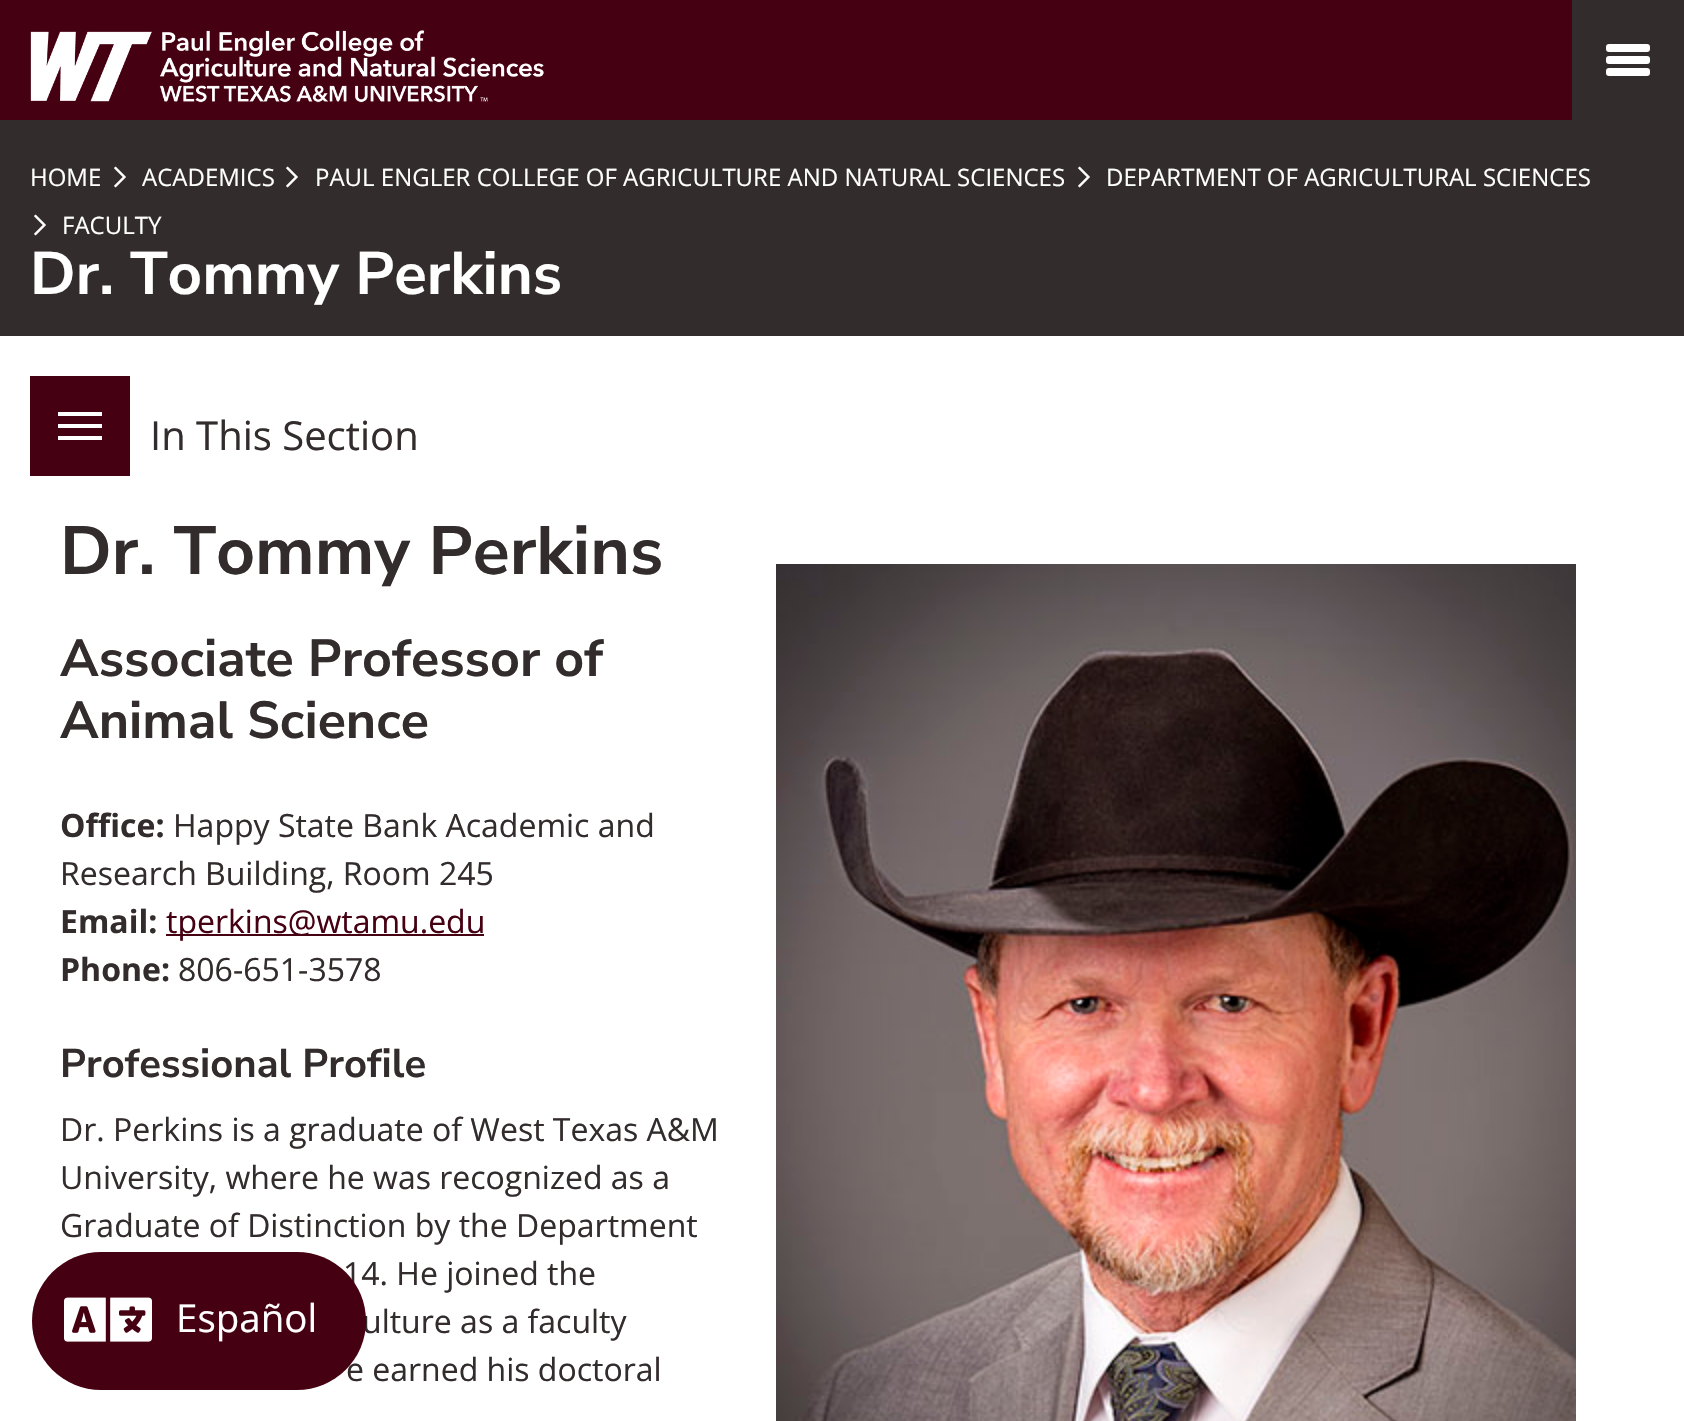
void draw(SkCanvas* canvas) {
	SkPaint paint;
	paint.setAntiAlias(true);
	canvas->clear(0xffffffff);
	paint.setColor(0xff450012);
	canvas->drawRect(SkRect::MakeXYWH(0, 0, 1572, 120), paint);
	paint.setColor(0xff332c2c);
	canvas->drawRect(SkRect::MakeXYWH(1572, 0, 112, 120), paint);
	paint.setColor(0xffffffff);
	canvas->drawRoundRect(SkRect::MakeXYWH(1606, 56, 44, 8), 3, 3, paint);
	canvas->drawRoundRect(SkRect::MakeXYWH(1606, 44, 44, 8), 3, 3, paint);
	canvas->drawRoundRect(SkRect::MakeXYWH(1606, 68, 44, 8), 3, 3, paint);
	canvas->drawImageRect(SkImages::DeferredFromEncodedData(SkData::MakeFromFileName("img1.png")), SkRect::MakeXYWH(30, 30, 514, 73), SkSamplingOptions());
	paint.setColor(0xff332c2c);
	canvas->drawRect(SkRect::MakeXYWH(0, 120, 1684, 216), paint);
	SkFont f1(fontMgr->matchFamilyStyle("Open Sans", SkFontStyle::Normal()), 24);
	f1.setSubpixel(true);
	paint.setColor(0xffffffff);
	canvas->drawString("HOME", 30, 186, f1, paint);
	canvas->drawImageRect(SkImages::DeferredFromEncodedData(SkData::MakeFromFileName("img2.png")), SkRect::MakeXYWH(114, 166, 12, 22), SkSamplingOptions());
	canvas->drawString("ACADEMICS", 142, 186, f1, paint);
	canvas->drawImageRect(SkImages::DeferredFromEncodedData(SkData::MakeFromFileName("img2.png")), SkRect::MakeXYWH(286, 166, 12, 22), SkSamplingOptions());
	canvas->drawString("PAUL ENGLER COLLEGE OF AGRICULTURE AND NATURAL SCIENCES", 315, 186, f1, paint);
	canvas->drawImageRect(SkImages::DeferredFromEncodedData(SkData::MakeFromFileName("img2.png")), SkRect::MakeXYWH(1078, 166, 12, 22), SkSamplingOptions());
	canvas->drawString("DEPARTMENT OF AGRICULTURAL SCIENCES", 1106, 186, f1, paint);
	canvas->drawImageRect(SkImages::DeferredFromEncodedData(SkData::MakeFromFileName("img2.png")), SkRect::MakeXYWH(34, 214, 12, 22), SkSamplingOptions());
	canvas->drawString("FACULTY", 62, 234, f1, paint);
	SkFont f2(fontMgr->matchFamilyStyle("Nunito Sans", SkFontStyle::Bold()), 60);
	f2.setSubpixel(true);
	canvas->drawString("Dr. Tommy Perkins", 30, 294, f2, paint);
	paint.setColor(0xff450012);
	canvas->drawRect(SkRect::MakeXYWH(30, 376, 100, 100), paint);
	paint.setColor(0xffffffff);
	canvas->drawRect(SkRect::MakeXYWH(58, 424, 44, 4), paint);
	canvas->drawRect(SkRect::MakeXYWH(58, 412, 44, 4), paint);
	canvas->drawRect(SkRect::MakeXYWH(58, 436, 44, 4), paint);
	SkFont f3(fontMgr->matchFamilyStyle("Open Sans", SkFontStyle::Normal()), 40);
	f3.setSubpixel(true);
	paint.setColor(0xff332c2c);
	canvas->drawString("In This Section", 150, 450, f3, paint);
	SkFont f4(fontMgr->matchFamilyStyle("Nunito Sans", SkFontStyle::Bold()), 68);
	f4.setSubpixel(true);
	canvas->drawString("Dr. Tommy Perkins", 60, 574, f4, paint);
	SkFont f5(fontMgr->matchFamilyStyle("Nunito Sans", SkFontStyle::Bold()), 52);
	f5.setSubpixel(true);
	canvas->drawString("Associate Professor of", 60, 676, f5, paint);
	canvas->drawString("Animal Science", 60, 738, f5, paint);
	canvas->drawImageRect(SkImages::DeferredFromEncodedData(SkData::MakeFromFileName("img3.png")), SkRect::MakeXYWH(776, 564, 800, 857), SkSamplingOptions());
	SkFont f6(fontMgr->matchFamilyStyle("Open Sans", SkFontStyle::Bold()), 32);
	f6.setSubpixel(true);
	canvas->drawString("Office:", 60, 837, f6, paint);
	SkFont f7(fontMgr->matchFamilyStyle("Open Sans", SkFontStyle::Normal()), 32);
	f7.setSubpixel(true);
	canvas->drawString("Happy State Bank Academic and", 173, 837, f7, paint);
	canvas->drawString("Research Building, Room 245", 60, 885, f7, paint);
	canvas->drawString("Email:", 60, 933, f6, paint);
	paint.setColor(0xff450012);
	canvas->drawRect(SkRect::MakeXYWH(166, 934, 318, 2), paint);
	canvas->drawString("tperkins@wtamu.edu", 166, 933, f7, paint);
	paint.setColor(0xff332c2c);
	canvas->drawString("Phone:", 60, 981, f6, paint);
	canvas->drawString("806-651-3578", 178, 981, f7, paint);
	SkFont f8(fontMgr->matchFamilyStyle("Nunito Sans", SkFontStyle::Bold()), 40);
	f8.setSubpixel(true);
	canvas->drawString("Professional Profile", 60, 1077, f8, paint);
	canvas->drawString("Dr. Perkins is a graduate of West Texas A&M", 60, 1141, f7, paint);
	canvas->drawString("University, where he was recognized as a", 60, 1189, f7, paint);
	canvas->drawString("Graduate of Distinction by the Department", 60, 1237, f7, paint);
	canvas->drawString("14. He joined the", 343, 1285, f7, paint);
	canvas->drawString("ulture as a faculty", 362, 1333, f7, paint);
	canvas->drawString("e earned his doctoral", 346, 1381, f7, paint);
	paint.setColor(0xff450012);
	canvas->drawRoundRect(SkRect::MakeXYWH(32, 1252, 334, 138), 69, 69, paint);
	canvas->drawImageRect(SkImages::DeferredFromEncodedData(SkData::MakeFromFileName("img4.png")), SkRect::MakeXYWH(64, 1297, 88, 45), SkSamplingOptions());
	SkFont f9(fontMgr->matchFamilyStyle("Open Sans", SkFontStyle::Normal()), 38.5);
	f9.setSubpixel(true);
	paint.setColor(0xffffffff);
	canvas->drawString("Español", 176, 1332, f9, paint);
}
